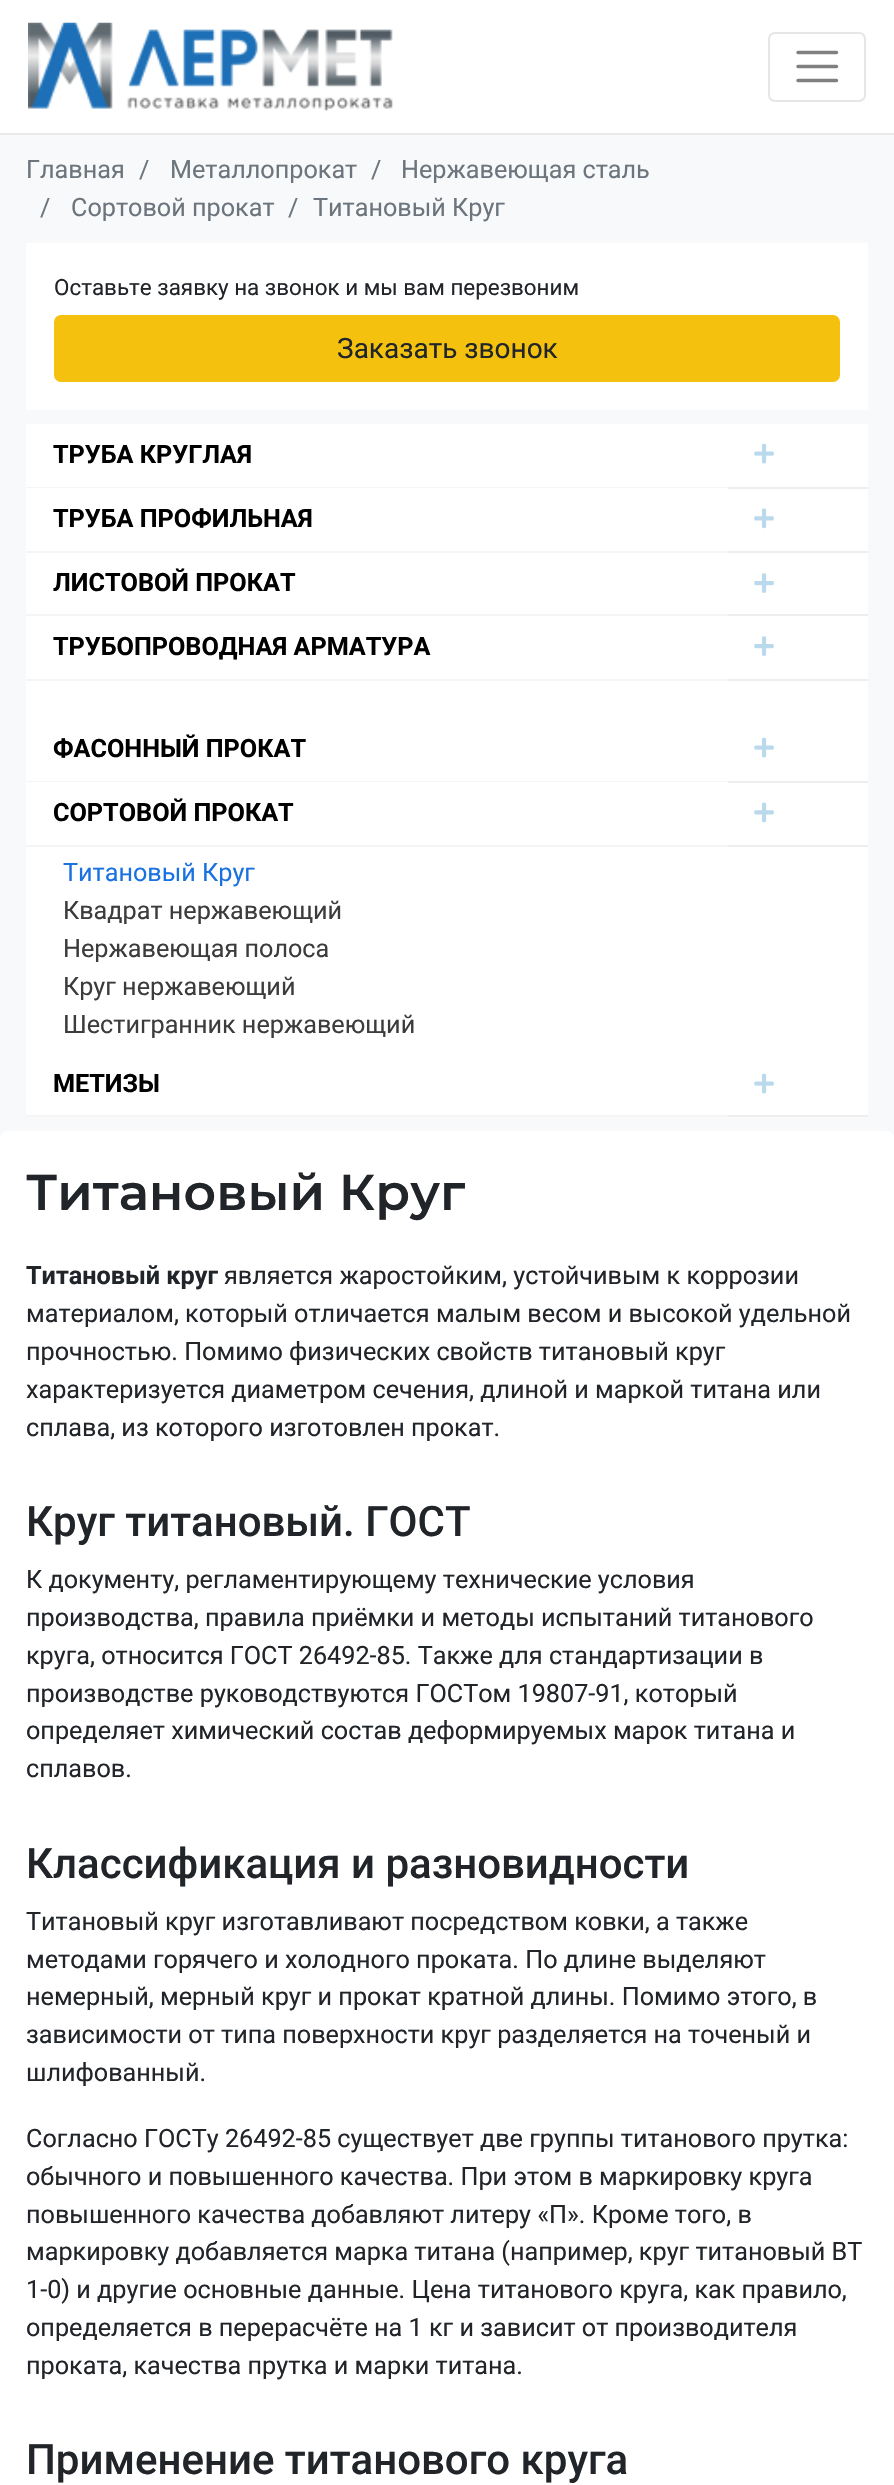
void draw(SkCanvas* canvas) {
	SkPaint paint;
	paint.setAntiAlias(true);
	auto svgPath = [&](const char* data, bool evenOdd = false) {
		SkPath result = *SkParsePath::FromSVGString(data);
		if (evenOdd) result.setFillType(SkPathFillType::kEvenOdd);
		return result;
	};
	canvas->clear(0xfff8f9fa);
	paint.setColor(0xffffffff);
	canvas->drawRect(SkRect::MakeXYWH(0, 0, 894, 133), paint);
	canvas->drawImageRect(SkImages::DeferredFromEncodedData(SkData::MakeFromFileName("img1.png")), SkRect::MakeXYWH(28, 22, 365, 89), SkSamplingOptions());
	paint.setStroke(true);
	paint.setStrokeWidth(2);
	paint.setColor(0xffe6e6e6);
	canvas->drawRoundRect(SkRect::MakeXYWH(769, 33, 96, 68), 6, 6, paint);
	paint.setStrokeWidth(3.5);
	paint.setStrokeCap(SkPaint::kRound_Cap);
	paint.setColor(0xff808080);
	canvas->drawPath(svgPath("M798 52.5H836.5M798 66.5H836.5M798 80.5H836.5"), paint);
	paint.setStroke(false);
	paint.setColor(0xffeaeaea);
	canvas->drawRect(SkRect::MakeXYWH(0, 133, 894, 2), paint);
	SkFont f1(fontMgr->matchFamilyStyle("Roboto", SkFontStyle::Normal()), 25.2);
	f1.setSubpixel(true);
	paint.setColor(0xff6c757d);
	canvas->drawString("Главная", 26, 178, f1, paint);
	canvas->drawString("/", 139, 178, f1, paint);
	canvas->drawString("Металлопрокат", 170, 178, f1, paint);
	canvas->drawString("/", 371, 178, f1, paint);
	canvas->drawString("Нержавеющая сталь", 401, 178, f1, paint);
	canvas->drawString("/", 40, 216, f1, paint);
	canvas->drawString("Сортовой прокат", 71, 216, f1, paint);
	canvas->drawString("/", 288, 216, f1, paint);
	canvas->drawString("Титановый Круг", 313, 216, f1, paint);
	paint.setColor(0xffffffff);
	canvas->drawRect(SkRect::MakeXYWH(26, 243, 842, 167), paint);
	SkFont f2(fontMgr->matchFamilyStyle("Roboto", SkFontStyle::Normal()), 22.4);
	f2.setSubpixel(true);
	paint.setColor(0xff212529);
	canvas->drawString("Оставьте заявку на звонок и мы вам перезвоним", 54, 295, f2, paint);
	paint.setColor(0xfff4c10f);
	canvas->drawRoundRect(SkRect::MakeXYWH(55, 316, 784, 65), 6, 6, paint);
	paint.setStroke(true);
	paint.setStrokeWidth(2);
	paint.setStrokeCap(SkPaint::kButt_Cap);
	canvas->drawRoundRect(SkRect::MakeXYWH(55, 316, 784, 65), 6, 6, paint);
	SkFont f3(fontMgr->matchFamilyStyle("Roboto", SkFontStyle::Normal()), 28);
	f3.setSubpixel(true);
	paint.setStroke(false);
	paint.setColor(0xff212529);
	canvas->drawString("Заказать звонок", 337, 358, f3, paint);
	paint.setColor(0xffffffff);
	canvas->drawRect(SkRect::MakeXYWH(26, 424, 842, 691), paint);
	paint.setColor(0xfff5f5f5);
	canvas->drawRect(SkRect::MakeXYWH(26, 487, 702, 1), paint);
	SkFont f4(fontMgr->matchFamilyStyle("Roboto", SkFontStyle::Bold()), 25.2);
	f4.setSubpixel(true);
	paint.setColor(0xff000000);
	canvas->drawString("ТРУБА КРУГЛАЯ", 53, 463, f4, paint);
	paint.setColor(0xffeeeeee);
	canvas->drawRect(SkRect::MakeXYWH(728, 487, 140, 2), paint);
	canvas->drawImageRect(SkImages::DeferredFromEncodedData(SkData::MakeFromFileName("img2.png")), SkRect::MakeXYWH(754, 443, 20, 21), SkSamplingOptions());
	paint.setColor(0xfff5f5f5);
	canvas->drawRect(SkRect::MakeXYWH(26, 551, 702, 2), paint);
	paint.setColor(0xff000000);
	canvas->drawString("ТРУБА ПРОФИЛЬНАЯ", 53, 527, f4, paint);
	paint.setColor(0xffeeeeee);
	canvas->drawRect(SkRect::MakeXYWH(728, 551, 140, 2), paint);
	canvas->drawImageRect(SkImages::DeferredFromEncodedData(SkData::MakeFromFileName("img3.png")), SkRect::MakeXYWH(754, 508, 20, 21), SkSamplingOptions());
	paint.setColor(0xfff5f5f5);
	canvas->drawRect(SkRect::MakeXYWH(26, 614, 702, 2), paint);
	paint.setColor(0xff000000);
	canvas->drawString("ЛИСТОВОЙ ПРОКАТ", 53, 591, f4, paint);
	paint.setColor(0xffeeeeee);
	canvas->drawRect(SkRect::MakeXYWH(728, 614, 140, 2), paint);
	canvas->drawImageRect(SkImages::DeferredFromEncodedData(SkData::MakeFromFileName("img4.png")), SkRect::MakeXYWH(754, 573, 20, 20), SkSamplingOptions());
	paint.setColor(0xfff5f5f5);
	canvas->drawRect(SkRect::MakeXYWH(26, 679, 702, 2), paint);
	paint.setColor(0xff000000);
	canvas->drawString("ТРУБОПРОВОДНАЯ АРМАТУРА", 53, 655, f4, paint);
	paint.setColor(0xffeeeeee);
	canvas->drawRect(SkRect::MakeXYWH(728, 679, 140, 2), paint);
	canvas->drawImageRect(SkImages::DeferredFromEncodedData(SkData::MakeFromFileName("img4.png")), SkRect::MakeXYWH(754, 636, 20, 20), SkSamplingOptions());
	paint.setColor(0xfff5f5f5);
	canvas->drawRect(SkRect::MakeXYWH(26, 781, 702, 1), paint);
	paint.setColor(0xff000000);
	canvas->drawString("ФАСОННЫЙ ПРОКАТ", 53, 757, f4, paint);
	paint.setColor(0xffeeeeee);
	canvas->drawRect(SkRect::MakeXYWH(728, 781, 140, 2), paint);
	canvas->drawImageRect(SkImages::DeferredFromEncodedData(SkData::MakeFromFileName("img2.png")), SkRect::MakeXYWH(754, 737, 20, 21), SkSamplingOptions());
	paint.setColor(0xfff5f5f5);
	canvas->drawRect(SkRect::MakeXYWH(26, 845, 702, 2), paint);
	paint.setColor(0xff000000);
	canvas->drawString("СОРТОВОЙ ПРОКАТ", 53, 821, f4, paint);
	paint.setColor(0xffeeeeee);
	canvas->drawRect(SkRect::MakeXYWH(728, 845, 140, 2), paint);
	canvas->drawImageRect(SkImages::DeferredFromEncodedData(SkData::MakeFromFileName("img3.png")), SkRect::MakeXYWH(754, 802, 20, 21), SkSamplingOptions());
	paint.setColor(0xff1972e0);
	canvas->drawString("Титановый Круг", 63, 881, f1, paint);
	paint.setColor(0xff3c3c3c);
	canvas->drawString("Квадрат нержавеющий", 63, 919, f1, paint);
	canvas->drawString("Нержавеющая полоса", 63, 957, f1, paint);
	canvas->drawString("Круг нержавеющий", 63, 995, f1, paint);
	canvas->drawString("Шестигранник нержавеющий", 63, 1033, f1, paint);
	paint.setColor(0xfff5f5f5);
	canvas->drawRect(SkRect::MakeXYWH(26, 1115, 702, 2), paint);
	paint.setColor(0xff000000);
	canvas->drawString("МЕТИЗЫ", 53, 1092, f4, paint);
	paint.setColor(0xffeeeeee);
	canvas->drawRect(SkRect::MakeXYWH(728, 1115, 140, 2), paint);
	canvas->drawImageRect(SkImages::DeferredFromEncodedData(SkData::MakeFromFileName("img2.png")), SkRect::MakeXYWH(754, 1073, 20, 21), SkSamplingOptions());
	paint.setColor(0xffffffff);
	canvas->drawRoundRect(SkRect::MakeXYWH(0, 1131, 894, 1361), 7, 7, paint);
	SkFont f5(fontMgr->matchFamilyStyle("Montserrat", SkFontStyle(600, SkFontStyle::kNormal_Width, SkFontStyle::kUpright_Slant)), 50.5);
	f5.setSubpixel(true);
	paint.setColor(0xff212529);
	canvas->drawString("Титановый Круг", 26, 1210, f5, paint);
	canvas->drawString("Титановый круг", 26, 1284, f4, paint);
	canvas->drawString("является жаростойким, устойчивым к коррозии", 224, 1284, f1, paint);
	canvas->drawString("материалом, который отличается малым весом и высокой удельной", 26, 1322, f1, paint);
	canvas->drawString("прочностью. Помимо физических свойств титановый круг", 26, 1360, f1, paint);
	canvas->drawString("характеризуется диаметром сечения, длиной и маркой титана или", 26, 1398, f1, paint);
	canvas->drawString("сплава, из которого изготовлен прокат.", 26, 1436, f1, paint);
	SkFont f6(fontMgr->matchFamilyStyle("Roboto", SkFontStyle(500, SkFontStyle::kNormal_Width, SkFontStyle::kUpright_Slant)), 42);
	f6.setSubpixel(true);
	canvas->drawString("Круг титановый. ГОСТ", 26, 1536, f6, paint);
	canvas->drawString("К документу, регламентирующему технические условия", 26, 1588, f1, paint);
	canvas->drawString("производства, правила приёмки и методы испытаний титанового", 26, 1626, f1, paint);
	canvas->drawString("круга, относится ГОСТ 26492-85. Также для стандартизации в", 26, 1664, f1, paint);
	canvas->drawString("производстве руководствуются ГОСТом 19807-91, который", 26, 1702, f1, paint);
	canvas->drawString("определяет химический состав деформируемых марок титана и", 26, 1739, f1, paint);
	canvas->drawString("сплавов.", 26, 1777, f1, paint);
	canvas->drawString("Классификация и разновидности", 26, 1878, f6, paint);
	canvas->drawString("Титановый круг изготавливают посредством ковки, а также", 26, 1930, f1, paint);
	canvas->drawString("методами горячего и холодного проката. По длине выделяют", 26, 1968, f1, paint);
	canvas->drawString("немерный, мерный круг и прокат кратной длины. Помимо этого, в", 26, 2005, f1, paint);
	canvas->drawString("зависимости от типа поверхности круг разделяется на точеный и", 26, 2043, f1, paint);
	canvas->drawString("шлифованный.", 26, 2081, f1, paint);
	canvas->drawString("Согласно ГОСТу 26492-85 существует две группы титанового прутка:", 26, 2147, f1, paint);
	canvas->drawString("обычного и повышенного качества. При этом в маркировку круга", 26, 2185, f1, paint);
	canvas->drawString("повышенного качества добавляют литеру «П». Кроме того, в", 26, 2223, f1, paint);
	canvas->drawString("маркировку добавляется марка титана (например, круг титановый ВТ", 26, 2260, f1, paint);
	canvas->drawString("1-0) и другие основные данные. Цена титанового круга, как правило,", 26, 2298, f1, paint);
	canvas->drawString("определяется в перерасчёте на 1 кг и зависит от производителя", 26, 2336, f1, paint);
	canvas->drawString("проката, качества прутка и марки титана.", 26, 2374, f1, paint);
	canvas->drawString("Применение титанового круга", 26, 2474, f6, paint);
}
